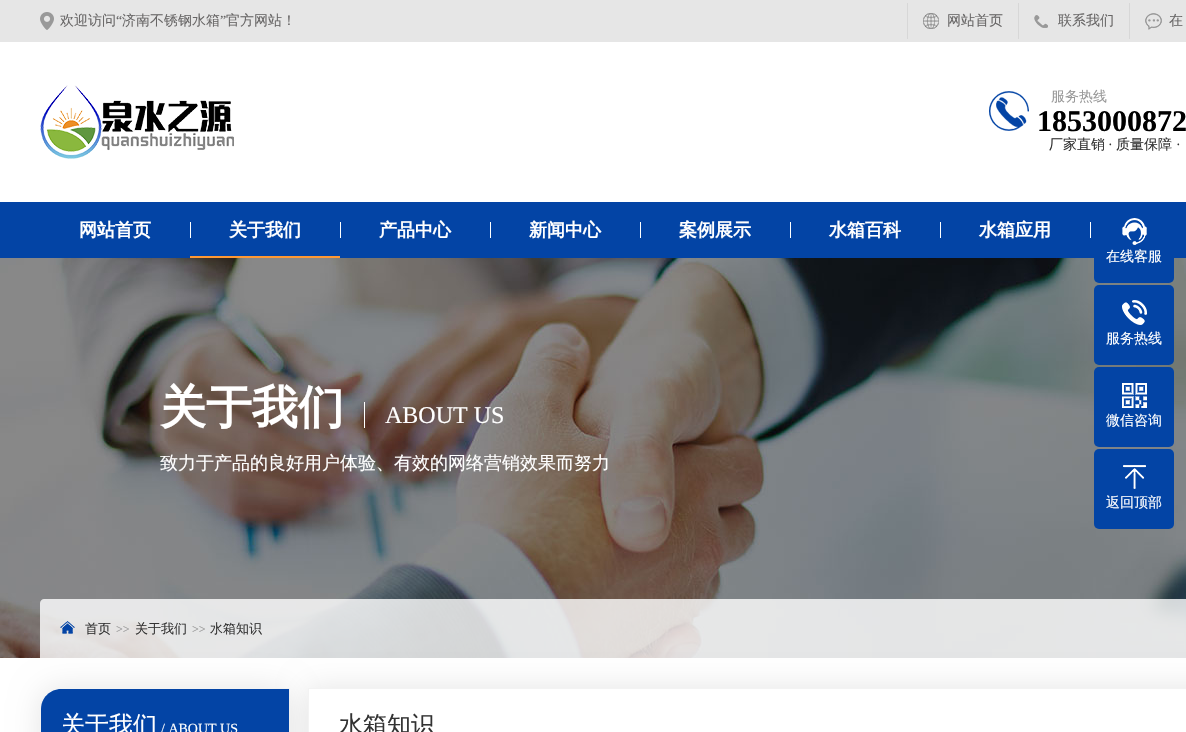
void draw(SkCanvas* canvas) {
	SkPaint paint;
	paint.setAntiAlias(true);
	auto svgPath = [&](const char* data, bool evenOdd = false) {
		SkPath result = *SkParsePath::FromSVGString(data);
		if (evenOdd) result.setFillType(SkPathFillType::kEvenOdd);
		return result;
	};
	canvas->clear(0xffffffff);
	paint.setColor(0xffe6e6e6);
	canvas->drawRect(SkRect::MakeXYWH(0, 0, 1186, 42), paint);
	canvas->drawImageRect(SkImages::DeferredFromEncodedData(SkData::MakeFromFileName("img1.png")), SkRect::MakeXYWH(40, 12, 14, 18), SkSamplingOptions());
	SkFont f1(fontMgr->matchFamilyStyle("WenQuanYi Zen Hei", SkFontStyle(500, SkFontStyle::kNormal_Width, SkFontStyle::kUpright_Slant)), 14);
	f1.setSubpixel(true);
	paint.setColor(0xff686666);
	canvas->drawString("欢迎访问", 60, 25, f1, paint);
	SkFont f2(fontMgr->matchFamilyStyle("Liberation Serif", SkFontStyle::Normal()), 14);
	f2.setSubpixel(true);
	canvas->drawString("“", 116, 25, f2, paint);
	canvas->drawString("济南不锈钢水箱", 122, 25, f1, paint);
	canvas->drawString("”", 220, 25, f2, paint);
	canvas->drawString("官方网站！", 226, 25, f1, paint);
	paint.setColor(0xffd7d7d7);
	canvas->drawRect(SkRect::MakeXYWH(907, 3, 1, 36), paint);
	canvas->drawImageRect(SkImages::DeferredFromEncodedData(SkData::MakeFromFileName("img2.png")), SkRect::MakeXYWH(923, 13, 16, 16), SkSamplingOptions());
	paint.setColor(0xff686666);
	canvas->drawString("网站首页", 947, 25, f1, paint);
	paint.setColor(0xffd7d7d7);
	canvas->drawRect(SkRect::MakeXYWH(1018, 3, 1, 36), paint);
	canvas->drawImageRect(SkImages::DeferredFromEncodedData(SkData::MakeFromFileName("img3.png")), SkRect::MakeXYWH(1034, 15, 14, 13), SkSamplingOptions());
	paint.setColor(0xff686666);
	canvas->drawString("联系我们", 1058, 25, f1, paint);
	paint.setColor(0xffd7d7d7);
	canvas->drawRect(SkRect::MakeXYWH(1129, 3, 1, 36), paint);
	canvas->drawImageRect(SkImages::DeferredFromEncodedData(SkData::MakeFromFileName("img4.png")), SkRect::MakeXYWH(1145, 13, 17, 17), SkSamplingOptions());
	paint.setColor(0xff686666);
	canvas->drawString("在", 1169, 25, f1, paint);
	canvas->drawImageRect(SkImages::DeferredFromEncodedData(SkData::MakeFromFileName("img5.png")), SkRect::MakeXYWH(40, 85, 194, 74), SkSamplingOptions());
	canvas->drawImageRect(SkImages::DeferredFromEncodedData(SkData::MakeFromFileName("img6.png")), SkRect::MakeXYWH(989, 91, 40, 40), SkSamplingOptions());
	paint.setColor(0xff999999);
	canvas->drawString("服务热线", 1051, 101, f1, paint);
	SkFont f3(fontMgr->matchFamilyStyle("Liberation Serif", SkFontStyle::Bold()), 30);
	f3.setSubpixel(true);
	paint.setColor(0xff000000);
	canvas->drawString("1853000872", 1037, 131, f3, paint);
	paint.setColor(0xff333333);
	canvas->drawString("厂家直销", 1049, 149, f1, paint);
	canvas->drawString("·", 1108, 149, f2, paint);
	canvas->drawString("质量保障", 1116, 149, f1, paint);
	canvas->drawString("·", 1176, 149, f2, paint);
	paint.setColor(0xff0344a5);
	canvas->drawRect(SkRect::MakeXYWH(0, 202, 1186, 56), paint);
	SkFont f4(fontMgr->matchFamilyStyle("WenQuanYi Zen Hei", SkFontStyle::Bold()), 18);
	f4.setSubpixel(true);
	paint.setColor(0xffffffff);
	canvas->drawString("网站首页", 79, 236, f4, paint);
	canvas->drawRect(SkRect::MakeXYWH(190, 222, 1, 16), paint);
	canvas->drawString("关于我们", 229, 236, f4, paint);
	paint.setColor(0xffff9934);
	canvas->drawRect(SkRect::MakeXYWH(190, 256, 150, 2), paint);
	paint.setColor(0xffffffff);
	canvas->drawRect(SkRect::MakeXYWH(340, 222, 1, 16), paint);
	canvas->drawString("产品中心", 379, 236, f4, paint);
	canvas->drawRect(SkRect::MakeXYWH(490, 222, 1, 16), paint);
	canvas->drawString("新闻中心", 529, 236, f4, paint);
	canvas->drawRect(SkRect::MakeXYWH(640, 222, 1, 16), paint);
	canvas->drawString("案例展示", 679, 236, f4, paint);
	canvas->drawRect(SkRect::MakeXYWH(790, 222, 1, 16), paint);
	canvas->drawString("水箱百科", 829, 236, f4, paint);
	canvas->drawRect(SkRect::MakeXYWH(940, 222, 1, 16), paint);
	canvas->drawString("水箱应用", 979, 236, f4, paint);
	canvas->drawRect(SkRect::MakeXYWH(1090, 222, 1, 16), paint);
	canvas->drawImageRect(SkImages::DeferredFromEncodedData(SkData::MakeFromFileName("img7.png")), SkRect::MakeXYWH(0, 258, 1186, 400), SkSamplingOptions());
	SkFont f5(fontMgr->matchFamilyStyle("WenQuanYi Zen Hei", SkFontStyle::Bold()), 46);
	f5.setSubpixel(true);
	canvas->drawString("关于我们", 160, 423, f5, paint);
	SkFont f6(fontMgr->matchFamilyStyle("Liberation Serif", SkFontStyle::Normal()), 24);
	f6.setSubpixel(true);
	canvas->drawString("ABOUT US", 385, 423, f6, paint);
	canvas->drawRect(SkRect::MakeXYWH(364, 402, 1, 26), paint);
	SkFont f7(fontMgr->matchFamilyStyle("WenQuanYi Zen Hei", SkFontStyle(500, SkFontStyle::kNormal_Width, SkFontStyle::kUpright_Slant)), 18);
	f7.setSubpixel(true);
	canvas->drawString("致力于产品的良好用户体验、有效的网络营销效果而努力", 160, 469, f7, paint);
	paint.setColor(0xccffffff);
	canvas->drawPath(svgPath("M44 599H1186C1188 599 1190 601 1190 603V658H40V603C40 601 42 599 44 599Z"), paint);
	canvas->drawImageRect(SkImages::DeferredFromEncodedData(SkData::MakeFromFileName("img8.png")), SkRect::MakeXYWH(60, 621, 15, 13), SkSamplingOptions());
	SkFont f8(fontMgr->matchFamilyStyle("WenQuanYi Zen Hei", SkFontStyle(500, SkFontStyle::kNormal_Width, SkFontStyle::kUpright_Slant)), 13);
	f8.setSubpixel(true);
	paint.setColor(0xff333333);
	canvas->drawString("首页", 85, 633, f8, paint);
	SkFont f9(fontMgr->matchFamilyStyle("Liberation Serif", SkFontStyle::Normal()), 12);
	f9.setSubpixel(true);
	paint.setColor(0xff999999);
	canvas->drawString(">>", 116, 633, f9, paint);
	paint.setColor(0xff333333);
	canvas->drawString("关于我们", 135, 633, f8, paint);
	paint.setColor(0xff999999);
	canvas->drawString(">>", 192, 633, f9, paint);
	paint.setColor(0xff333333);
	canvas->drawString("水箱知识", 210, 633, f8, paint);
	paint.setColor(0xff0344a5);
	canvas->drawRoundRect(SkRect::MakeXYWH(1094, 203, 80, 80), 5, 5, paint);
	canvas->drawImageRect(SkImages::DeferredFromEncodedData(SkData::MakeFromFileName("img9.png")), SkRect::MakeXYWH(1122, 218, 25, 27), SkSamplingOptions());
	paint.setColor(0xffffffff);
	canvas->drawString("在线客服", 1106, 261, f1, paint);
	paint.setColor(0xff0344a5);
	canvas->drawRoundRect(SkRect::MakeXYWH(1094, 285, 80, 80), 5, 5, paint);
	canvas->drawImageRect(SkImages::DeferredFromEncodedData(SkData::MakeFromFileName("img10.png")), SkRect::MakeXYWH(1122, 300, 25, 25), SkSamplingOptions());
	paint.setColor(0xffffffff);
	canvas->drawString("服务热线", 1106, 343, f1, paint);
	paint.setColor(0xff0344a5);
	canvas->drawRoundRect(SkRect::MakeXYWH(1094, 367, 80, 80), 5, 5, paint);
	canvas->drawImageRect(SkImages::DeferredFromEncodedData(SkData::MakeFromFileName("img11.png")), SkRect::MakeXYWH(1122, 383, 25, 25), SkSamplingOptions());
	paint.setColor(0xffffffff);
	canvas->drawString("微信咨询", 1106, 425, f1, paint);
	paint.setColor(0xff0344a5);
	canvas->drawRoundRect(SkRect::MakeXYWH(1094, 449, 80, 80), 5, 5, paint);
	canvas->drawImageRect(SkImages::DeferredFromEncodedData(SkData::MakeFromFileName("img12.png")), SkRect::MakeXYWH(1123, 465, 23, 24), SkSamplingOptions());
	paint.setColor(0xffffffff);
	canvas->drawString("返回顶部", 1106, 507, f1, paint);
	paint.setColor(0x1a000000);
	paint.setMaskFilter(SkMaskFilter::MakeBlur(kNormal_SkBlurStyle, 15));
	canvas->drawRoundRect(SkRect::MakeXYWH(40, 688, 250, 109), 20, 20, paint);
	paint.setMaskFilter(nullptr);
	paint.setColor(0xffffffff);
	canvas->drawPath(svgPath("M60 688.5H289.5V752.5H40.5V708C40.5 697 49 688.5 60 688.5Z"), paint);
	paint.setStroke(true);
	paint.setStrokeWidth(1);
	paint.setColor(0xfff3f3f3);
	canvas->drawPath(svgPath("M60 688.5H289.5V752.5H40.5V708C40.5 697 49 688.5 60 688.5Z"), paint);
	paint.setStroke(false);
	paint.setColor(0x1a000000);
	paint.setMaskFilter(SkMaskFilter::MakeBlur(kNormal_SkBlurStyle, 15));
	canvas->drawRect(SkRect::MakeXYWH(308, 688, 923, 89), paint);
	paint.setMaskFilter(nullptr);
	paint.setColor(0xff0344a5);
	canvas->drawPath(svgPath("M61 689H289V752H41V709C41 698 50 689 61 689Z"), paint);
	SkFont f10(fontMgr->matchFamilyStyle("WenQuanYi Zen Hei", SkFontStyle(500, SkFontStyle::kNormal_Width, SkFontStyle::kUpright_Slant)), 24);
	f10.setSubpixel(true);
	paint.setColor(0xffffffff);
	canvas->drawString("关于我们", 61, 733, f10, paint);
	canvas->drawString("/ ABOUT US", 161, 733, f2, paint);
	canvas->drawRect(SkRect::MakeXYWH(308.5, 688.5, 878, 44), paint);
	paint.setStroke(true);
	paint.setColor(0xfff3f3f3);
	canvas->drawRect(SkRect::MakeXYWH(308.5, 688.5, 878, 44), paint);
	paint.setStroke(false);
	paint.setColor(0xff333333);
	canvas->drawString("水箱知识", 339, 733, f10, paint);
}
